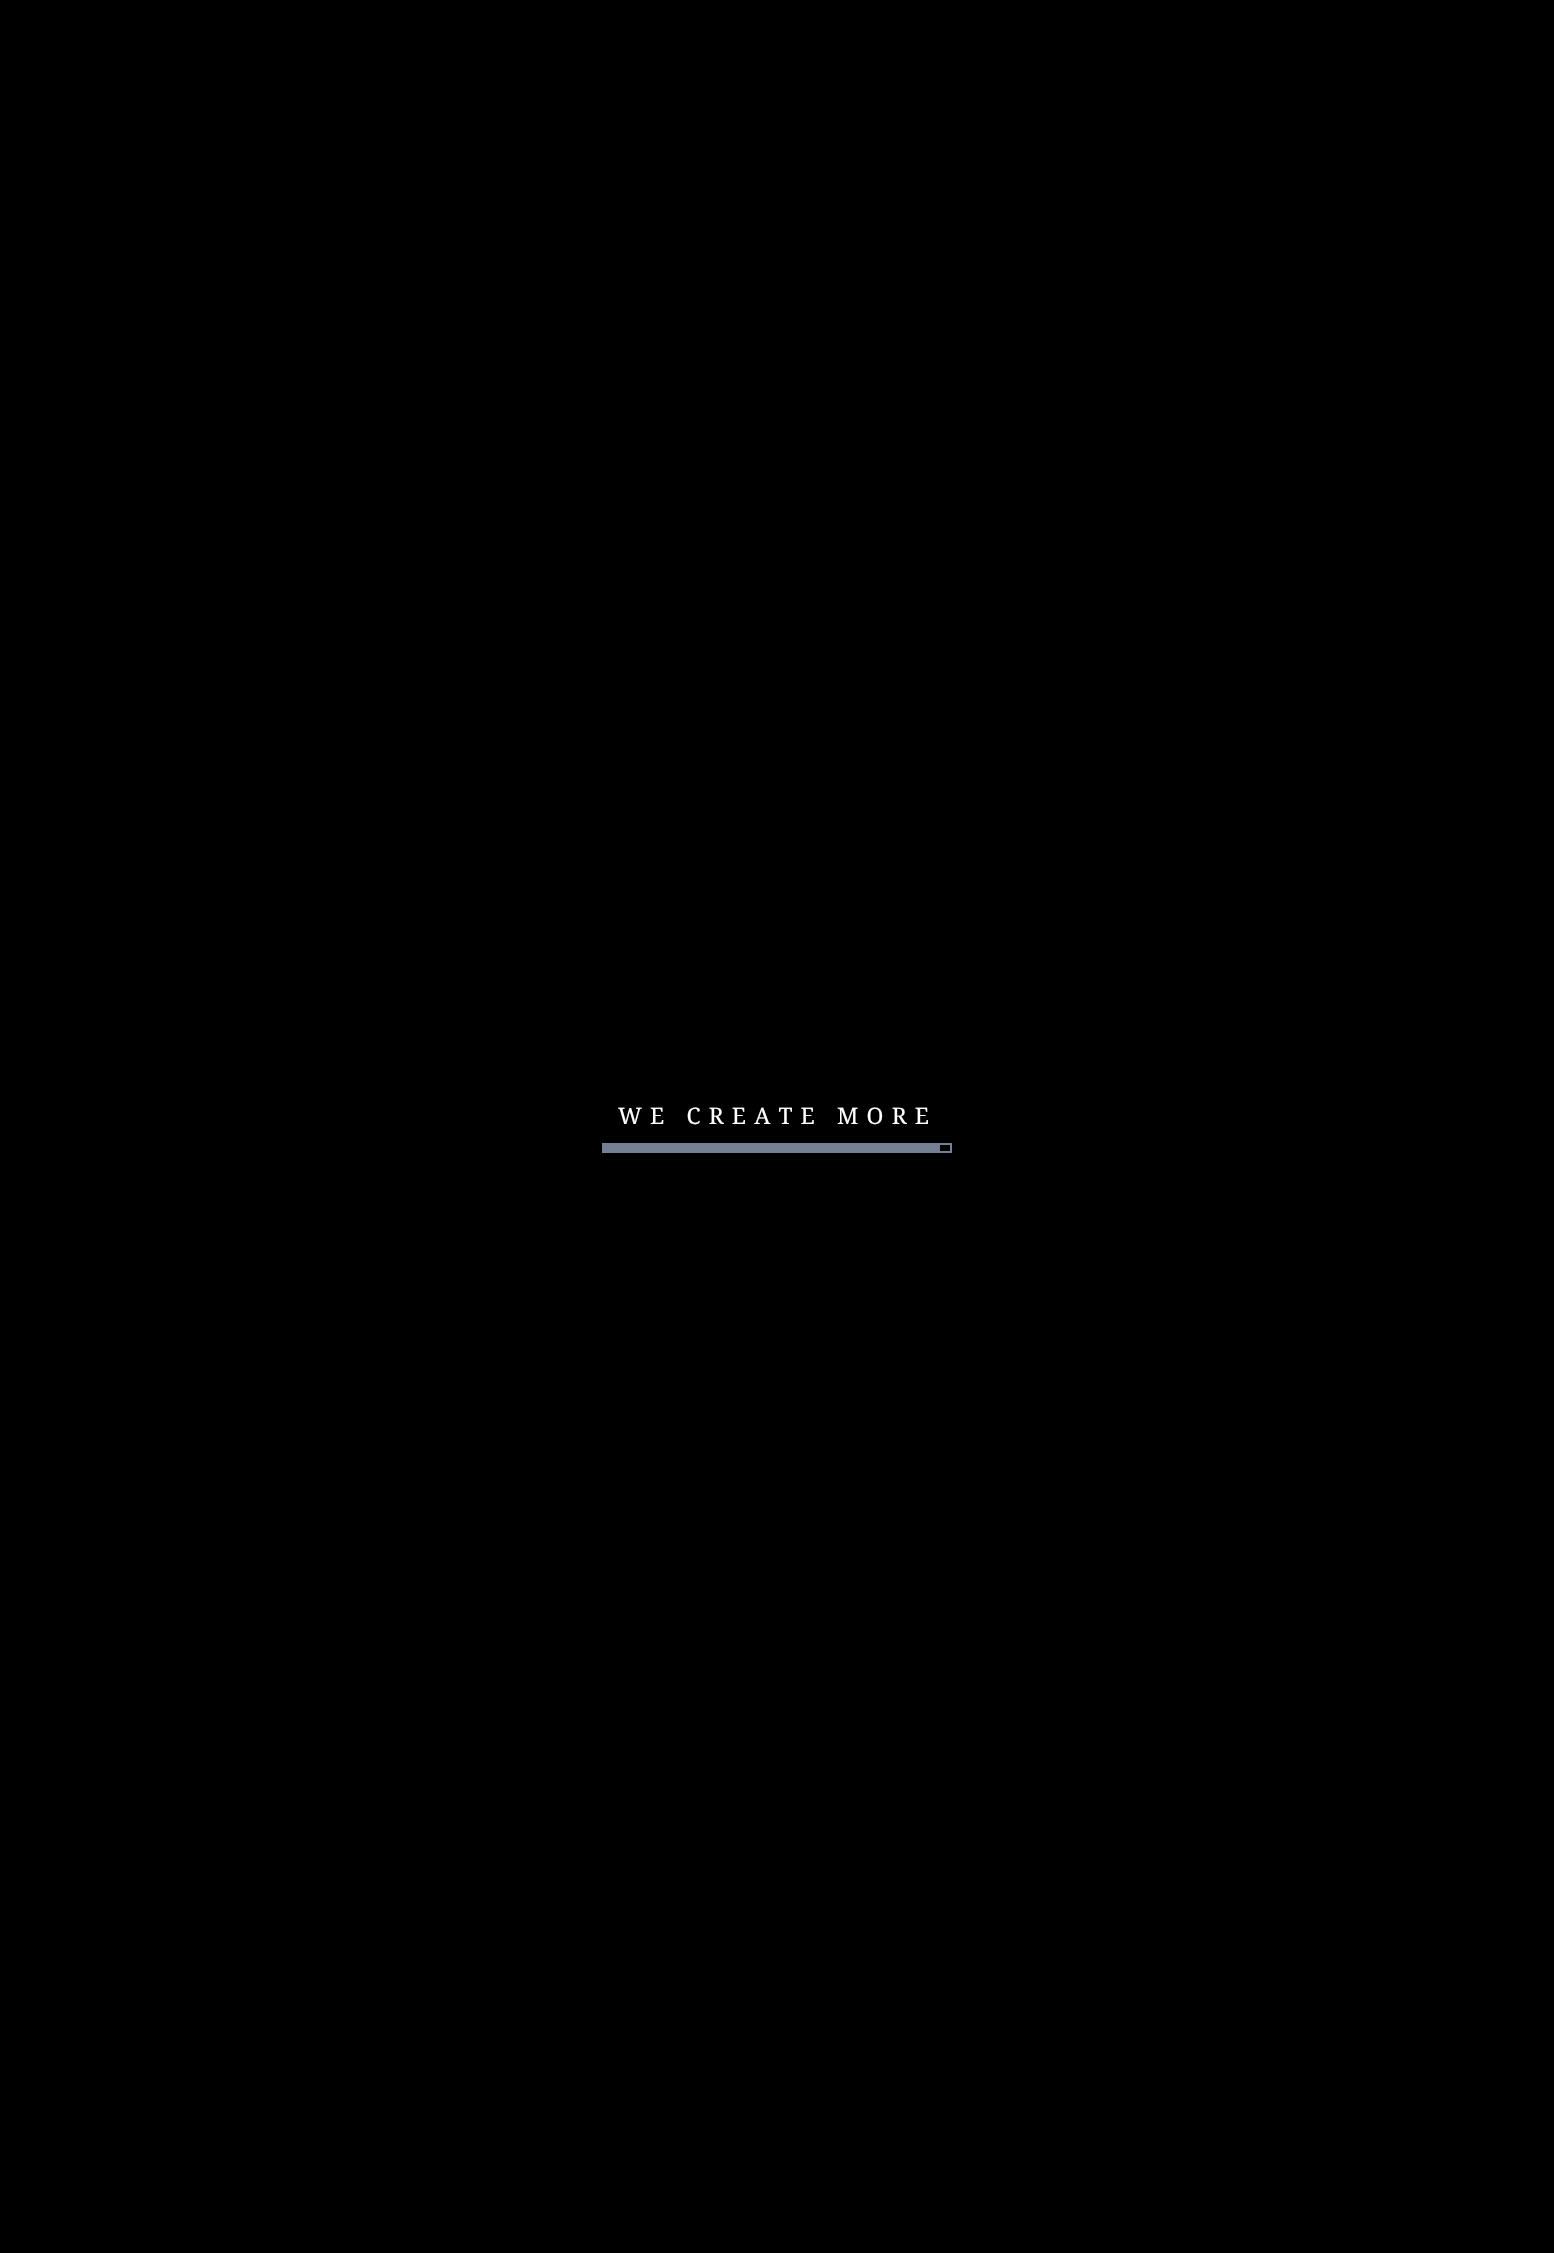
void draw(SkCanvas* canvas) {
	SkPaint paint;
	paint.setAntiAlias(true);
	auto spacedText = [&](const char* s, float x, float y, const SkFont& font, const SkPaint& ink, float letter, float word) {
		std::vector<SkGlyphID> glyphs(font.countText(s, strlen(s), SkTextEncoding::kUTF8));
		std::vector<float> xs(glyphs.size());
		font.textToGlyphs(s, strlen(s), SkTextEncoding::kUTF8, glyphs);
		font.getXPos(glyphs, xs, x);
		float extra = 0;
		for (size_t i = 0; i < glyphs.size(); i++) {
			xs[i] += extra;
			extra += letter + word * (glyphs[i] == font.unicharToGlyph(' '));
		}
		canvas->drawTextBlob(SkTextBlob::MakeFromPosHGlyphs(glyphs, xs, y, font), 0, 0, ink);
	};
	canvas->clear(0xff000000);
	SkFont f1(fontMgr->matchFamilyStyle("Droid Serif", SkFontStyle::Normal()), 22.75);
	f1.setSubpixel(true);
	paint.setColor(0xffffffff);
	spacedText("WE CREATE MORE", 618, 1124, f1, paint, 8.2, 0);
	paint.setStroke(true);
	paint.setStrokeWidth(2);
	paint.setColor(0xff758095);
	canvas->drawRect(SkRect::MakeXYWH(603, 1144, 348, 8), paint);
	paint.setStroke(false);
	canvas->drawRect(SkRect::MakeXYWH(604, 1145, 336, 6), paint);
}
